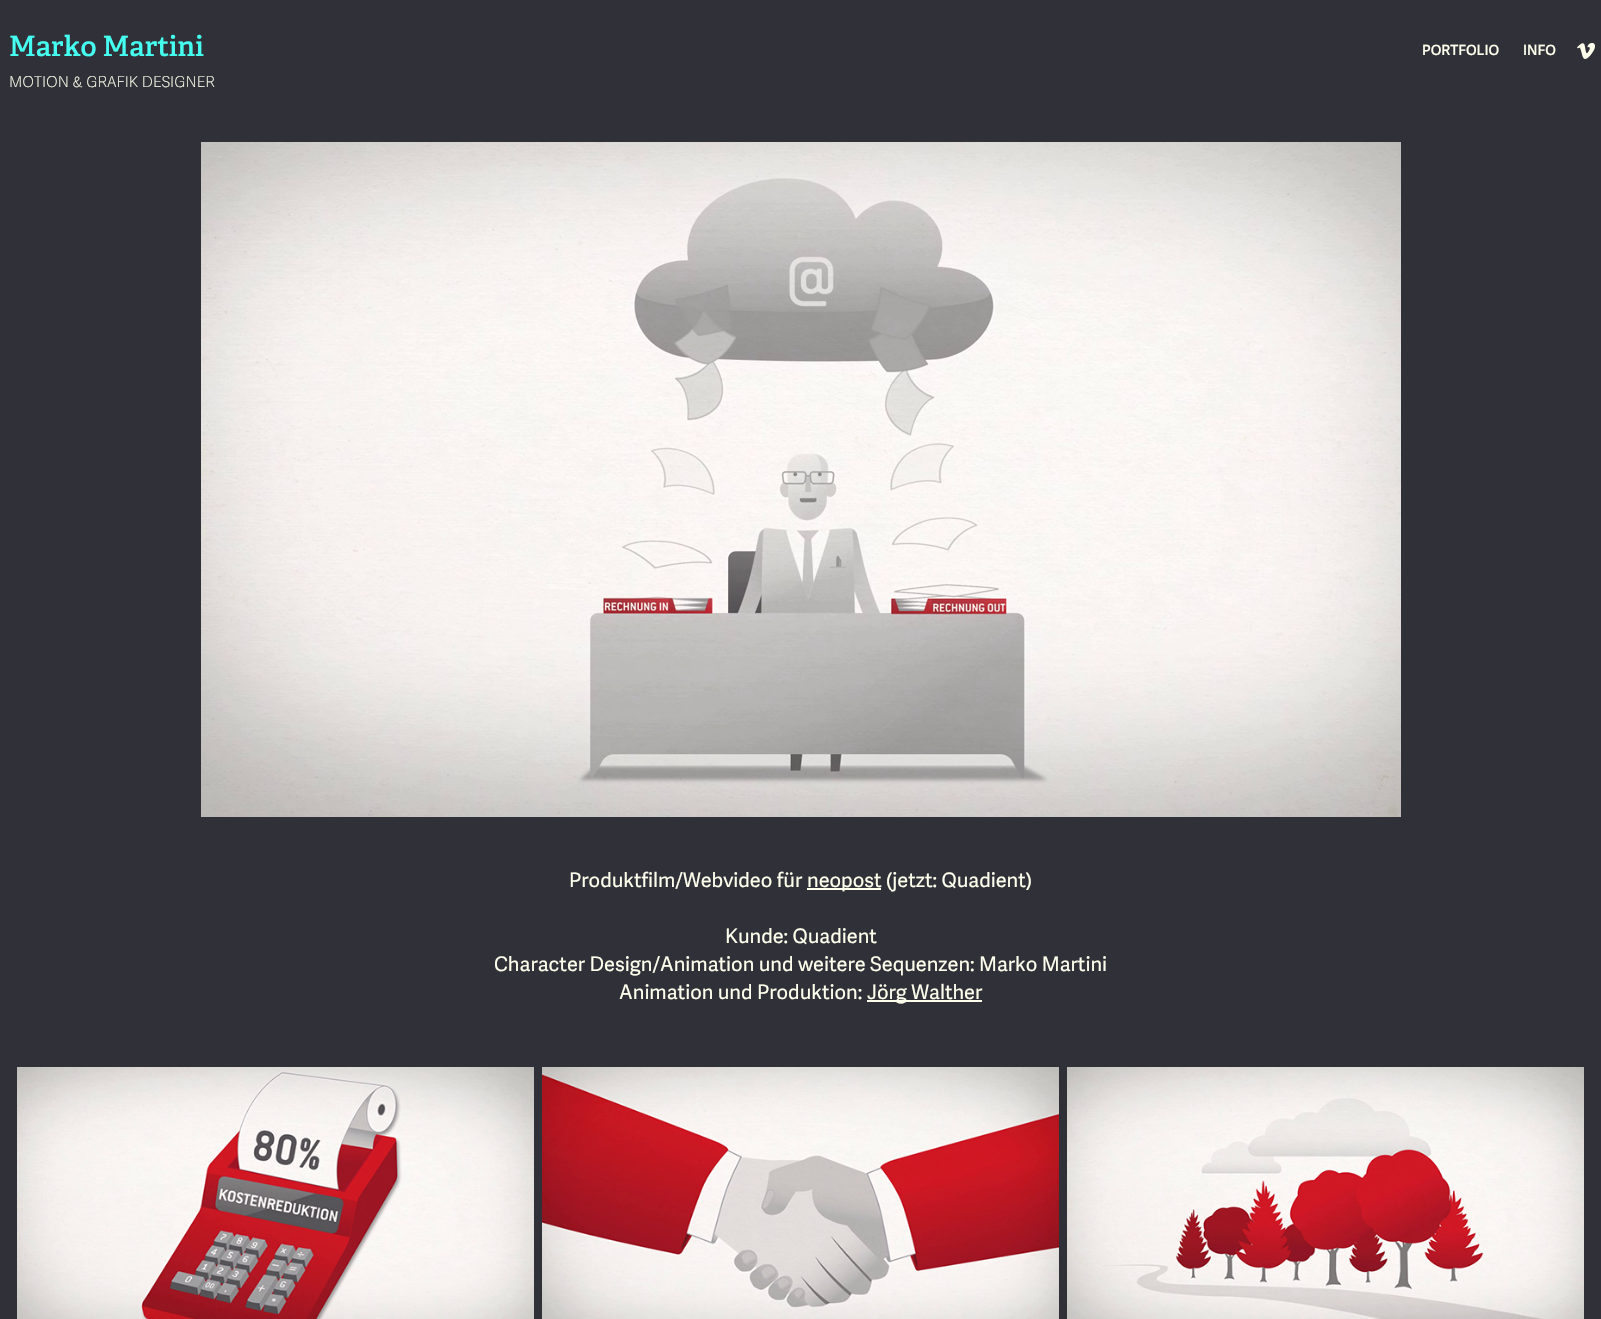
void draw(SkCanvas* canvas) {
	SkPaint paint;
	paint.setAntiAlias(true);
	canvas->clear(0xff303138);
	SkFont f1(fontMgr->matchFamilyStyle("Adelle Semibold", SkFontStyle(600, SkFontStyle::kNormal_Width, SkFontStyle::kUpright_Slant)), 28);
	f1.setSubpixel(true);
	paint.setColor(0xff45fff0);
	canvas->drawString("Marko Martini", 9, 56, f1, paint);
	SkFont f2(fontMgr->matchFamilyStyle("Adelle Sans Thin", SkFontStyle(100, SkFontStyle::kNormal_Width, SkFontStyle::kUpright_Slant)), 15);
	f2.setSubpixel(true);
	paint.setColor(0xffffffee);
	canvas->drawString("MOTION & GRAFIK DESIGNER", 9, 87, f2, paint);
	SkFont f3(fontMgr->matchFamilyStyle("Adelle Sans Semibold", SkFontStyle(600, SkFontStyle::kNormal_Width, SkFontStyle::kUpright_Slant)), 14);
	f3.setSubpixel(true);
	canvas->drawString("PORTFOLIO", 1422, 55, f3, paint);
	canvas->drawString("INFO", 1523, 55, f3, paint);
	canvas->drawImageRect(SkImages::DeferredFromEncodedData(SkData::MakeFromFileName("img1.png")), SkRect::MakeXYWH(1577, 43, 18, 16), SkSamplingOptions());
	canvas->drawImageRect(SkImages::DeferredFromEncodedData(SkData::MakeFromFileName("img2.png")), SkRect::MakeXYWH(201, 142, 1200, 675), SkSamplingOptions());
	SkFont f4(fontMgr->matchFamilyStyle("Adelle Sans", SkFontStyle::Normal()), 20);
	f4.setSubpixel(true);
	canvas->drawString("Produktfilm/Webvideo für", 569, 887, f4, paint);
	canvas->drawRect(SkRect::MakeXYWH(807, 888, 74, 2), paint);
	canvas->drawString("neopost (jetzt: Quadient)", 807, 887, f4, paint);
	canvas->drawString("Kunde: Quadient", 725, 943, f4, paint);
	canvas->drawString("Character Design/Animation und weitere Sequenzen: Marko Martini", 494, 971, f4, paint);
	canvas->drawString("Animation und Produktion:", 619, 999, f4, paint);
	canvas->drawRect(SkRect::MakeXYWH(867, 1000, 115, 2), paint);
	canvas->drawString("Jörg Walther", 867, 999, f4, paint);
	canvas->drawImageRect(SkImages::DeferredFromEncodedData(SkData::MakeFromFileName("img3.png")), SkRect::MakeXYWH(17, 1067, 517, 252), SkSamplingOptions());
	canvas->drawImageRect(SkImages::DeferredFromEncodedData(SkData::MakeFromFileName("img4.png")), SkRect::MakeXYWH(542, 1067, 517, 252), SkSamplingOptions());
	canvas->drawImageRect(SkImages::DeferredFromEncodedData(SkData::MakeFromFileName("img5.png")), SkRect::MakeXYWH(1067, 1067, 517, 252), SkSamplingOptions());
}
